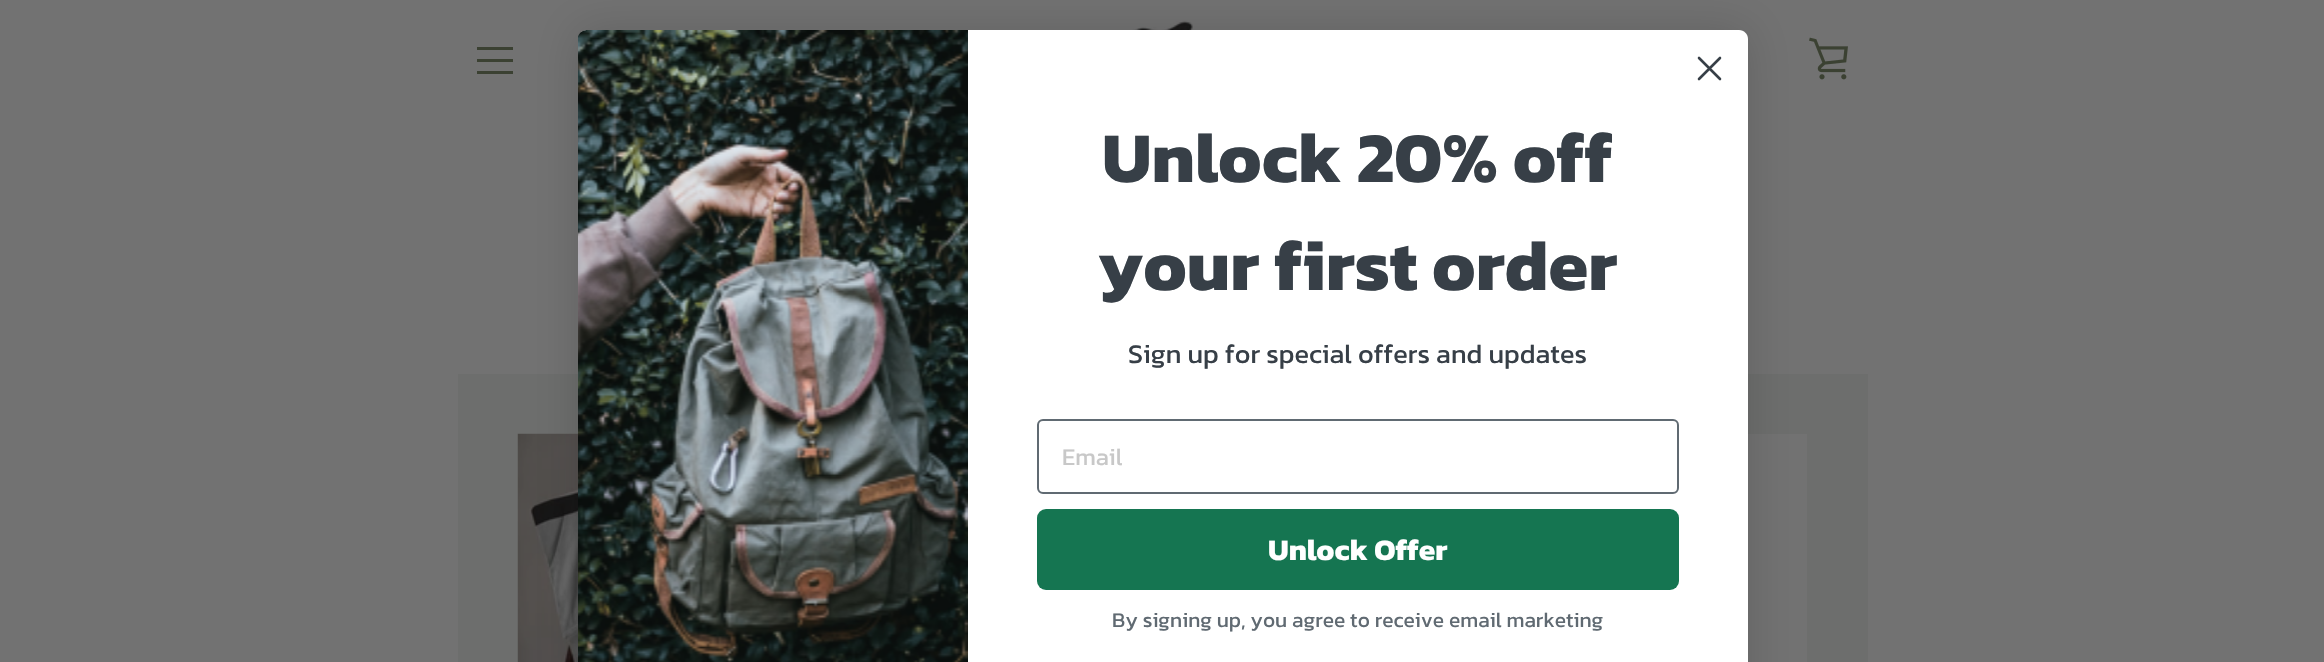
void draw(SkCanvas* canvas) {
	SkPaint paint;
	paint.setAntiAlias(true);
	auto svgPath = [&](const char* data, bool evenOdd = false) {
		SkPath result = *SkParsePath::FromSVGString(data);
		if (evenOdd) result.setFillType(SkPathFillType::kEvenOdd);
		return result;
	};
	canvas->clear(0xff727272);
	canvas->drawImageRect(SkImages::DeferredFromEncodedData(SkData::MakeFromFileName("img1.png")), SkRect::MakeXYWH(1120, 20, 82, 10), SkSamplingOptions());
	paint.setColor(0xff3b4132);
	canvas->drawRect(SkRect::MakeXYWH(477, 47, 36, 3), paint);
	canvas->drawRect(SkRect::MakeXYWH(477, 59, 36, 3), paint);
	canvas->drawRect(SkRect::MakeXYWH(477, 71, 36, 3), paint);
	canvas->drawImageRect(SkImages::DeferredFromEncodedData(SkData::MakeFromFileName("img2.png")), SkRect::MakeXYWH(1809, 37, 39, 43), SkSamplingOptions());
	paint.setColor(0xff6d6e6d);
	canvas->drawRect(SkRect::MakeXYWH(458, 374, 120, 288), paint);
	canvas->drawImageRect(SkImages::DeferredFromEncodedData(SkData::MakeFromFileName("img4.png")), SkRect::MakeXYWH(517, 433, 61, 229), SkSamplingOptions());
	canvas->drawRect(SkRect::MakeXYWH(1748, 374, 120, 288), paint);
	canvas->drawImageRect(SkImages::DeferredFromEncodedData(SkData::MakeFromFileName("img5.png")), SkRect::MakeXYWH(1748, 434, 59, 228), SkSamplingOptions());
	paint.setColor(0x26000000);
	paint.setMaskFilter(SkMaskFilter::MakeBlur(kNormal_SkBlurStyle, 22.5));
	canvas->drawRoundRect(SkRect::MakeXYWH(578, 30, 1170, 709), 9, 9, paint);
	paint.setMaskFilter(nullptr);
	paint.setColor(0xffffffff);
	canvas->drawPath(svgPath("M587 30H1739C1744 30 1748 34 1748 39V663H578V39C578 34 582 30 587 30Z"), paint);
	paint.setStroke(true);
	paint.setStrokeWidth(2.6);
	paint.setStrokeCap(SkPaint::kRound_Cap);
	paint.setStrokeJoin(SkPaint::kRound_Join);
	paint.setColor(0xff373f47);
	canvas->drawPath(svgPath("M1699 58L1720 79M1699 79L1720 58Z"), paint);
	canvas->drawImageRect(SkImages::DeferredFromEncodedData(SkData::MakeFromFileName("img3.png")), SkRect::MakeXYWH(578, 30, 390, 632), SkSamplingOptions());
	SkFont f1(fontMgr->matchFamilyStyle("Kanit", SkFontStyle::Bold()), 72);
	f1.setSubpixel(true);
	paint.setStroke(false);
	canvas->drawString("Unlock 20% off", 1102, 182, f1, paint);
	canvas->drawString("your first order", 1097, 290, f1, paint);
	SkFont f2(fontMgr->matchFamilyStyle("Kanit", SkFontStyle::Normal()), 27);
	f2.setSubpixel(true);
	canvas->drawString("Sign up for special offers and updates", 1128, 363, f2, paint);
	paint.setStroke(true);
	paint.setStrokeWidth(2);
	paint.setStrokeCap(SkPaint::kButt_Cap);
	paint.setStrokeJoin(SkPaint::kMiter_Join);
	paint.setColor(0xff606a72);
	canvas->drawRoundRect(SkRect::MakeXYWH(1038, 420, 640, 73), 5, 5, paint);
	SkFont f3(fontMgr->matchFamilyStyle("Kanit", SkFontStyle::Normal()), 24);
	f3.setSubpixel(true);
	paint.setStroke(false);
	paint.setColor(0xffc8c8c8);
	canvas->drawString("Email", 1062, 465, f3, paint);
	paint.setColor(0xff157551);
	canvas->drawRoundRect(SkRect::MakeXYWH(1037, 509, 642, 81), 9, 9, paint);
	SkFont f4(fontMgr->matchFamilyStyle("Kanit", SkFontStyle::Bold()), 30);
	f4.setSubpixel(true);
	paint.setColor(0xffffffff);
	canvas->drawString("Unlock Offer", 1268, 560, f4, paint);
	SkFont f5(fontMgr->matchFamilyStyle("Kanit", SkFontStyle::Normal()), 21);
	f5.setSubpixel(true);
	paint.setColor(0xff606a72);
	canvas->drawString("By signing up, you agree to receive email marketing", 1112, 627, f5, paint);
}
